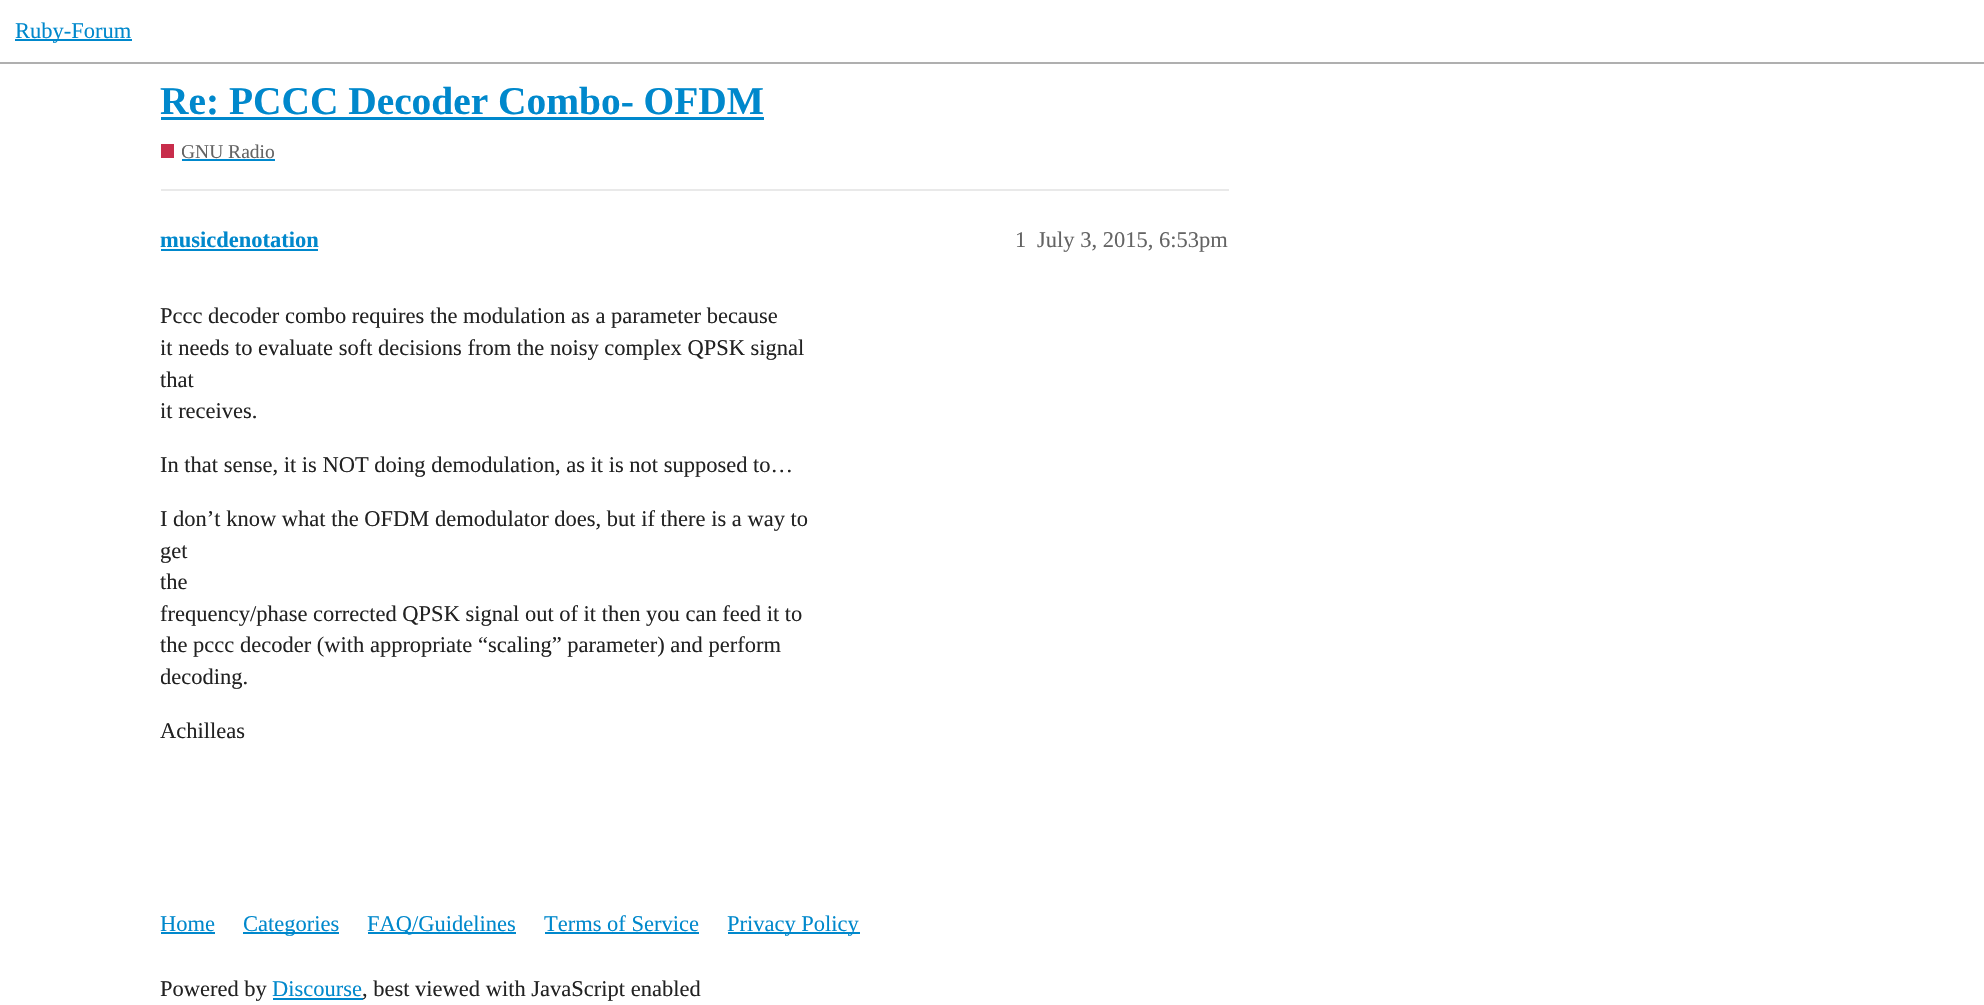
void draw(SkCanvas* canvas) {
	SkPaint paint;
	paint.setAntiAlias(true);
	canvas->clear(0xffffffff);
	paint.setColor(0xffafafaf);
	canvas->drawRect(SkRect::MakeXYWH(0, 62, 1984, 2), paint);
	paint.setColor(0xff0088cc);
	canvas->drawRect(SkRect::MakeXYWH(15, 39, 117, 2), paint);
	SkFont f1(fontMgr->matchFamilyStyle("Liberation Serif", SkFontStyle::Normal()), 22.5);
	f1.setSubpixel(true);
	canvas->drawString("Ruby-Forum", 15, 38, f1, paint);
	SkFont f2(fontMgr->matchFamilyStyle("Liberation Serif", SkFontStyle::Bold()), 39.4);
	f2.setSubpixel(true);
	canvas->drawString("Re: PCCC Decoder Combo- OFDM", 160, 114, f2, paint);
	canvas->drawRect(SkRect::MakeXYWH(161, 117, 603, 3), paint);
	paint.setColor(0xffc82d4b);
	canvas->drawRect(SkRect::MakeXYWH(161, 144, 13, 14), paint);
	canvas->save();
	canvas->clipRect(SkRect::MakeXYWH(182, 138, 93, 27));
	SkFont f3(fontMgr->matchFamilyStyle("Liberation Serif", SkFontStyle::Normal()), 19.5);
	f3.setSubpixel(true);
	paint.setColor(0xff646464);
	canvas->drawString("GNU Radio", 181, 158, f3, paint);
	canvas->restore();
	paint.setColor(0xff0088cc);
	canvas->drawRect(SkRect::MakeXYWH(182, 159, 93, 2), paint);
	paint.setColor(0xffe9e9e9);
	canvas->drawRect(SkRect::MakeXYWH(161, 189, 1068, 2), paint);
	SkFont f4(fontMgr->matchFamilyStyle("Liberation Serif", SkFontStyle::Bold()), 22.5);
	f4.setSubpixel(true);
	paint.setColor(0xff0088cc);
	canvas->drawString("musicdenotation", 160, 247, f4, paint);
	canvas->drawRect(SkRect::MakeXYWH(161, 249, 157, 2), paint);
	paint.setColor(0xff646464);
	canvas->drawString("1", 1015, 247, f1, paint);
	canvas->drawString("July 3, 2015, 6:53pm", 1037, 247, f1, paint);
	paint.setColor(0xff222222);
	canvas->drawString("Pccc decoder combo requires the modulation as a parameter because", 160, 323, f1, paint);
	canvas->save();
	canvas->clipRect(SkRect::MakeXYWH(161, 279, 1068, 491));
	canvas->drawString("it needs to evaluate soft decisions from the noisy complex QPSK signal", 160, 355, f1, paint);
	canvas->restore();
	canvas->drawString("that", 160, 387, f1, paint);
	canvas->save();
	canvas->clipRect(SkRect::MakeXYWH(161, 279, 1068, 491));
	canvas->drawString("it receives.", 160, 418, f1, paint);
	canvas->restore();
	canvas->drawString("In that sense, it is NOT doing demodulation, as it is not supposed to…", 160, 472, f1, paint);
	canvas->drawString("I don’t know what the OFDM demodulator does, but if there is a way to", 160, 526, f1, paint);
	canvas->drawString("get", 160, 558, f1, paint);
	canvas->drawString("the", 160, 589, f1, paint);
	canvas->drawString("frequency/phase corrected QPSK signal out of it then you can feed it to", 160, 621, f1, paint);
	canvas->drawString("the pccc decoder (with appropriate “scaling” parameter) and perform", 160, 652, f1, paint);
	canvas->save();
	canvas->clipRect(SkRect::MakeXYWH(161, 279, 1068, 491));
	canvas->drawString("decoding.", 160, 684, f1, paint);
	canvas->restore();
	canvas->drawString("Achilleas", 160, 738, f1, paint);
	paint.setColor(0xff0088cc);
	canvas->drawString("Home", 160, 931, f1, paint);
	canvas->drawRect(SkRect::MakeXYWH(161, 932, 54, 2), paint);
	canvas->drawRect(SkRect::MakeXYWH(243, 932, 96, 2), paint);
	canvas->drawString("Categories", 243, 931, f1, paint);
	canvas->drawRect(SkRect::MakeXYWH(368, 932, 148, 2), paint);
	canvas->drawString("FAQ/Guidelines", 367, 931, f1, paint);
	canvas->drawString("Terms of Service", 544, 931, f1, paint);
	canvas->drawRect(SkRect::MakeXYWH(545, 932, 154, 2), paint);
	canvas->drawRect(SkRect::MakeXYWH(728, 932, 132, 2), paint);
	canvas->drawString("Privacy Policy", 727, 931, f1, paint);
	paint.setColor(0xff222222);
	canvas->drawString("Powered by", 160, 996, f1, paint);
	paint.setColor(0xff0088cc);
	canvas->drawString("Discourse", 272, 996, f1, paint);
	canvas->drawRect(SkRect::MakeXYWH(273, 998, 90, 2), paint);
	paint.setColor(0xff222222);
	canvas->drawString(", best viewed with JavaScript enabled", 362, 996, f1, paint);
}
